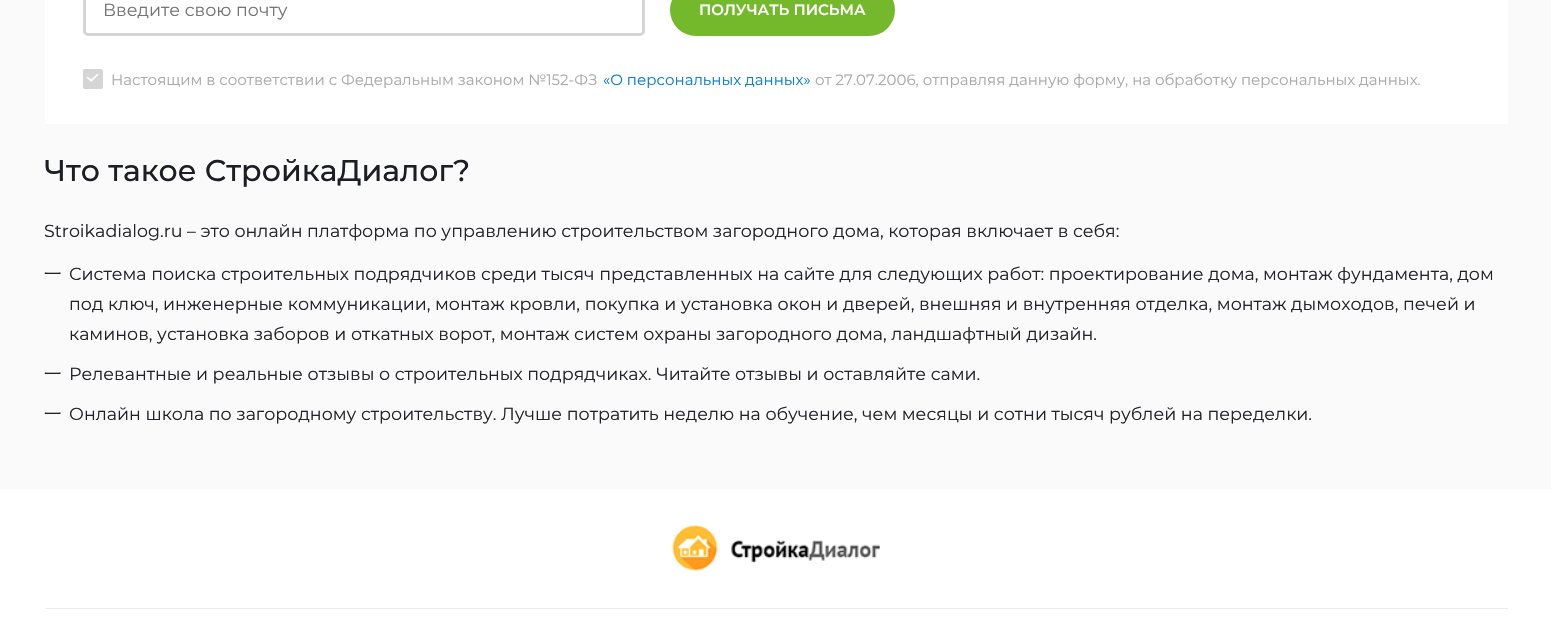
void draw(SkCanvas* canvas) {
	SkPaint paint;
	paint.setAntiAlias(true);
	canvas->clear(0xfffafafa);
	paint.setColor(0xffffffff);
	canvas->drawRect(SkRect::MakeXYWH(45, 0, 1463, 124), paint);
	paint.setStroke(true);
	paint.setStrokeWidth(3);
	paint.setColor(0xffd5d5d5);
	canvas->drawRoundRect(SkRect::MakeXYWH(84.5, -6.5, 559, 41), 3.5, 3.5, paint);
	SkFont f1(fontMgr->matchFamilyStyle("Montserrat", SkFontStyle::Normal()), 17.5);
	f1.setSubpixel(true);
	paint.setStroke(false);
	paint.setColor(0xff757575);
	canvas->drawString("Введите свою почту", 103, 16, f1, paint);
	paint.setColor(0xff74b92b);
	canvas->drawRoundRect(SkRect::MakeXYWH(670, -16, 225, 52), 26, 26, paint);
	SkFont f2(fontMgr->matchFamilyStyle("Montserrat", SkFontStyle(600, SkFontStyle::kNormal_Width, SkFontStyle::kUpright_Slant)), 15);
	f2.setSubpixel(true);
	paint.setColor(0xffffffff);
	canvas->drawString("ПОЛУЧАТЬ ПИСЬМА", 699, 15, f2, paint);
	paint.setColor(0xffd5d5d5);
	canvas->drawRoundRect(SkRect::MakeXYWH(83, 69, 20, 20), 2.5, 2.5, paint);
	canvas->drawImageRect(SkImages::DeferredFromEncodedData(SkData::MakeFromFileName("img1.png")), SkRect::MakeXYWH(86, 73, 13, 9), SkSamplingOptions());
	paint.setStroke(true);
	paint.setStrokeWidth(1);
	canvas->drawRoundRect(SkRect::MakeXYWH(83.5, 69.5, 19, 19), 2, 2, paint);
	SkFont f3(fontMgr->matchFamilyStyle("Montserrat", SkFontStyle::Normal()), 15);
	f3.setSubpixel(true);
	paint.setStroke(false);
	paint.setColor(0xffaaaaaa);
	canvas->drawString("Настоящим в соответствии с Федеральным законом № 152-ФЗ", 111, 85, f3, paint);
	paint.setColor(0xff0a7ece);
	canvas->drawString("«О персональных данных»", 603, 85, f3, paint);
	paint.setColor(0xffaaaaaa);
	canvas->drawString("от 27.07.2006, отправляя данную форму, на обработку персональных данных.", 815, 85, f3, paint);
	SkFont f4(fontMgr->matchFamilyStyle("Montserrat", SkFontStyle(500, SkFontStyle::kNormal_Width, SkFontStyle::kUpright_Slant)), 30);
	f4.setSubpixel(true);
	paint.setColor(0xff1c1e23);
	canvas->drawString("Что такое СтройкаДиалог?", 44, 181, f4, paint);
	paint.setColor(0xff222328);
	canvas->drawString("Stroikadialog.ru – это онлайн платформа по управлению строительством загородного дома, которая включает в себя:", 44, 237, f1, paint);
	SkFont f5(fontMgr->matchFamilyStyle("WenQuanYi Zen Hei", SkFontStyle(500, SkFontStyle::kNormal_Width, SkFontStyle::kUpright_Slant)), 17.5);
	f5.setSubpixel(true);
	canvas->drawString("一", 44, 280, f5, paint);
	canvas->drawString("Система поиска строительных подрядчиков среди тысяч представленных на сайте для следующих работ: проектирование дома, монтаж фундамента, дом", 69, 280, f1, paint);
	canvas->drawString("под ключ, инженерные коммуникации, монтаж кровли, покупка и установка окон и дверей, внешняя и внутренняя отделка, монтаж дымоходов, печей и", 69, 310, f1, paint);
	canvas->drawString("каминов, установка заборов и откатных ворот, монтаж систем охраны загородного дома, ландшафтный дизайн.", 69, 340, f1, paint);
	canvas->drawString("一", 44, 380, f5, paint);
	canvas->drawString("Релевантные и реальные отзывы о строительных подрядчиках. Читайте отзывы и оставляйте сами.", 69, 380, f1, paint);
	canvas->drawString("一", 44, 420, f5, paint);
	canvas->drawString("Онлайн школа по загородному строительству. Лучше потратить неделю на обучение, чем месяцы и сотни тысяч рублей на переделки.", 69, 420, f1, paint);
	paint.setColor(0xffffffff);
	canvas->drawRect(SkRect::MakeXYWH(0, 489, 1551, 131), paint);
	canvas->drawImageRect(SkImages::DeferredFromEncodedData(SkData::MakeFromFileName("img2.png")), SkRect::MakeXYWH(672, 525, 208, 46), SkSamplingOptions());
	paint.setColor(0xffebebeb);
	canvas->drawRect(SkRect::MakeXYWH(45, 608, 1463, 1), paint);
}
